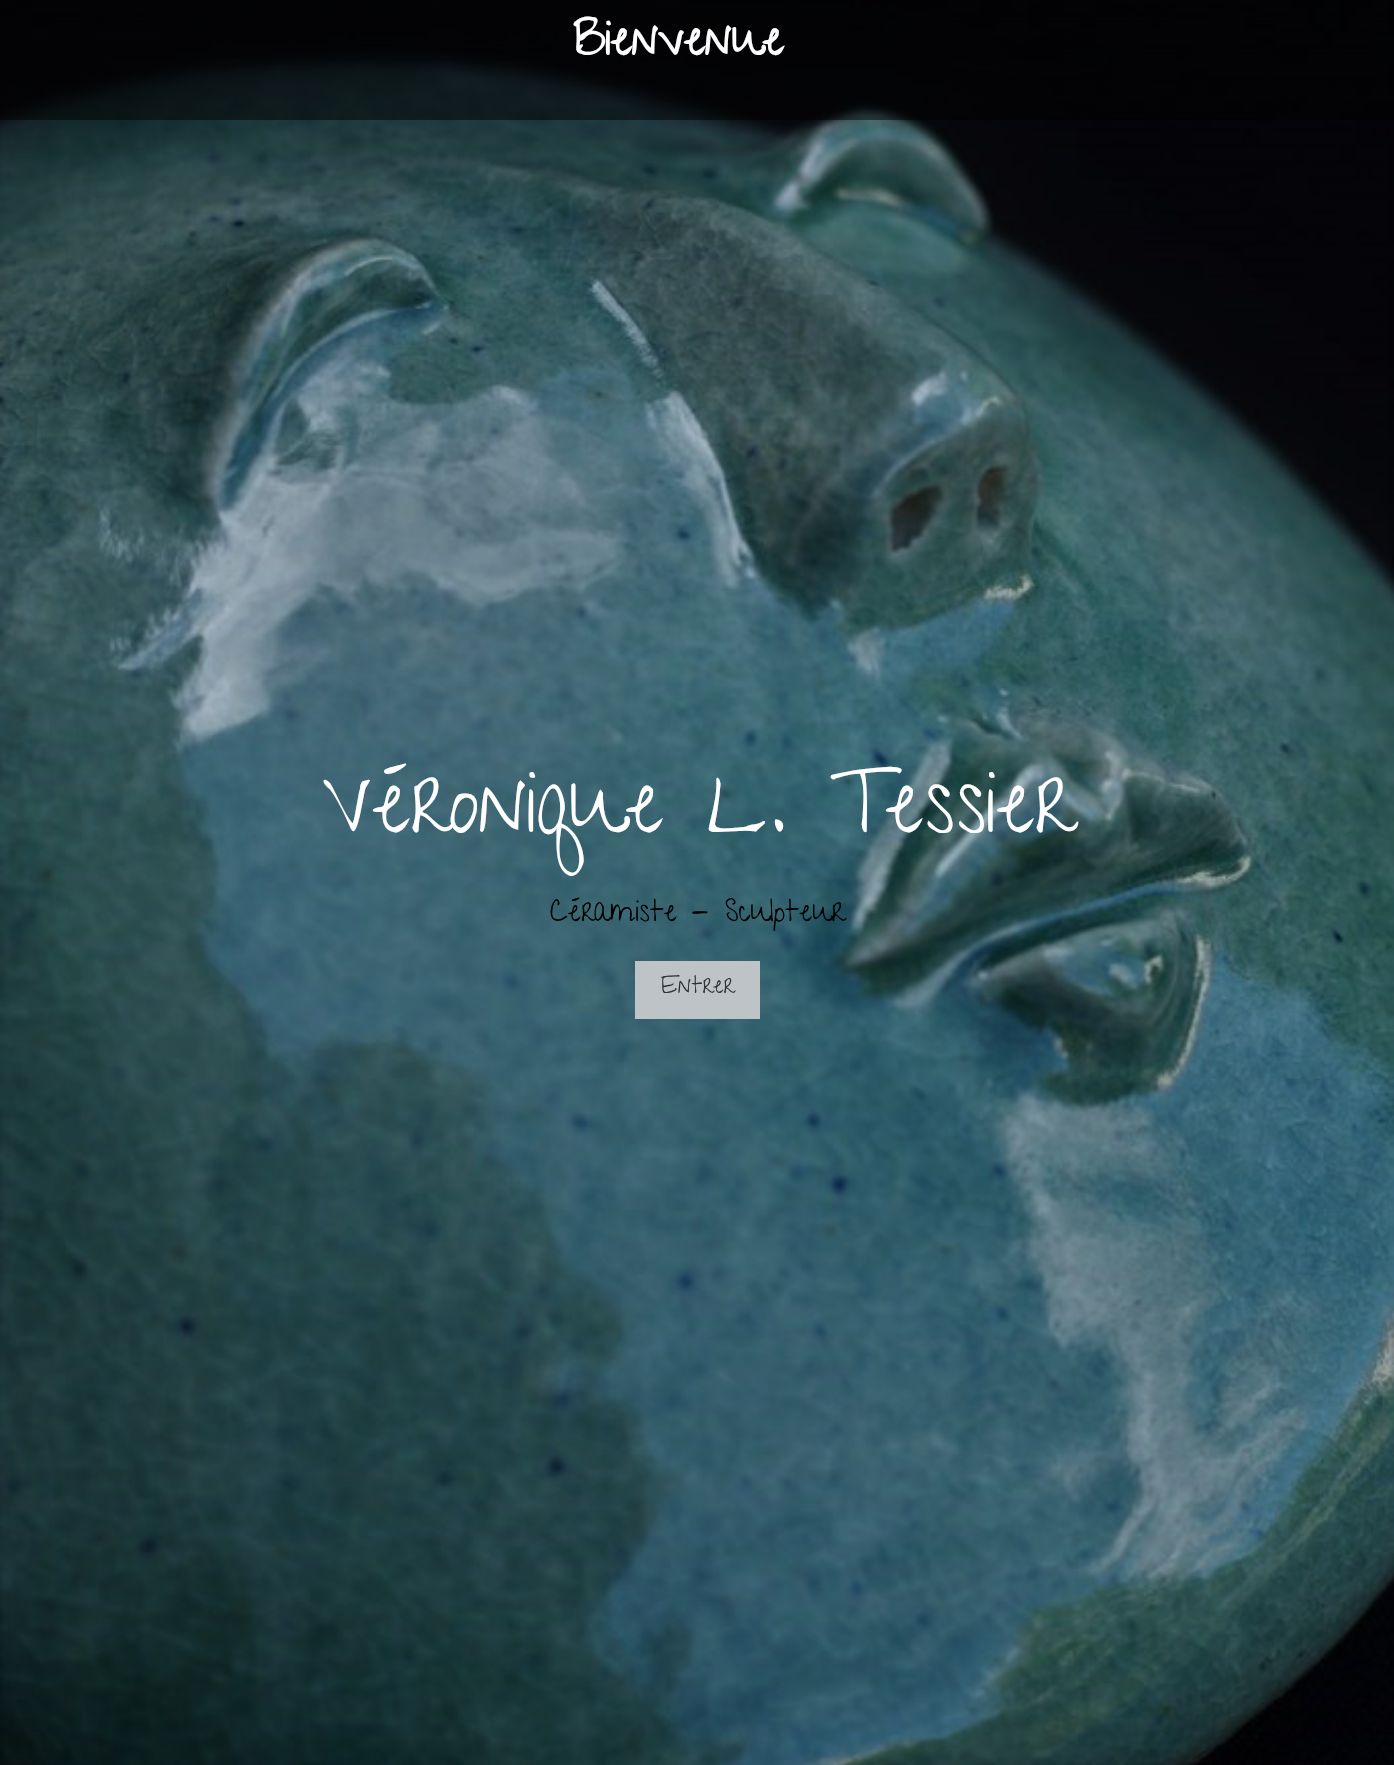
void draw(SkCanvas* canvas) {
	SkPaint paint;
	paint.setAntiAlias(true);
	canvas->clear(0xffffffff);
	canvas->drawImageRect(SkImages::DeferredFromEncodedData(SkData::MakeFromFileName("img1.png")), SkRect::MakeXYWH(0, 0, 1394, 1765), SkSamplingOptions());
	paint.setColor(0x80000000);
	canvas->drawRect(SkRect::MakeXYWH(0, 0, 1394, 120), paint);
	SkFont f1(fontMgr->matchFamilyStyle("Give You Glory", SkFontStyle::Bold()), 48);
	f1.setSubpixel(true);
	paint.setColor(0xffffffff);
	canvas->drawString("Bienvenue", 573, 55, f1, paint);
	SkFont f2(fontMgr->matchFamilyStyle("Give You Glory", SkFontStyle::Normal()), 87.5);
	f2.setSubpixel(true);
	canvas->drawString("Véronique L. Tessier", 322, 832, f2, paint);
	SkFont f3(fontMgr->matchFamilyStyle("Give You Glory", SkFontStyle::Normal()), 30);
	f3.setSubpixel(true);
	paint.setColor(0xff000000);
	canvas->drawString("Céramiste - Sculpteur", 550, 921, f3, paint);
	paint.setColor(0xffbdc3c7);
	canvas->drawRect(SkRect::MakeXYWH(635, 961, 125, 58), paint);
	SkFont f4(fontMgr->matchFamilyStyle("Give You Glory", SkFontStyle::Normal()), 24);
	f4.setSubpixel(true);
	paint.setColor(0xff333333);
	canvas->drawString("Entrer", 661, 993, f4, paint);
}
